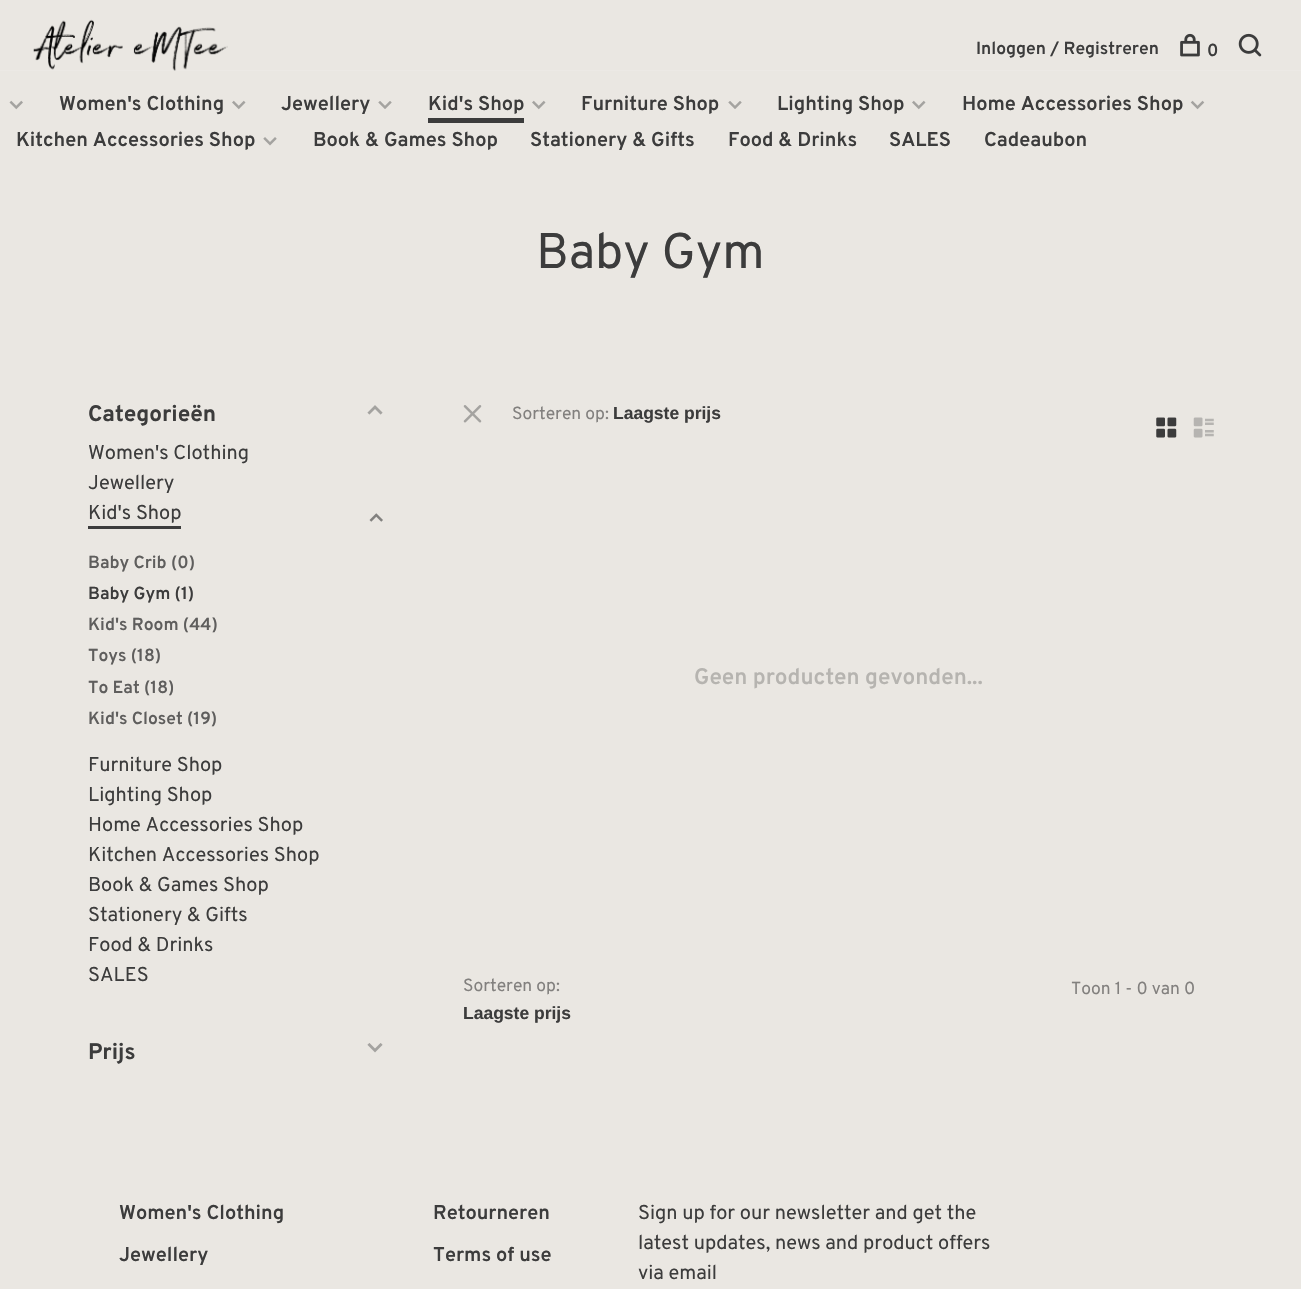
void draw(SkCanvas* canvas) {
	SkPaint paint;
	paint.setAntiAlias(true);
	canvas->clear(0xffeae7e2);
	canvas->drawImageRect(SkImages::DeferredFromEncodedData(SkData::MakeFromFileName("img1.png")), SkRect::MakeXYWH(33, 19, 195, 52), SkSamplingOptions());
	SkFont f1(fontMgr->matchFamilyStyle("Overpass", SkFontStyle(600, SkFontStyle::kNormal_Width, SkFontStyle::kUpright_Slant)), 17.5);
	f1.setSubpixel(true);
	paint.setColor(0xff3c3c3c);
	canvas->drawString("Inloggen / Registreren", 976, 54, f1, paint);
	canvas->drawImageRect(SkImages::DeferredFromEncodedData(SkData::MakeFromFileName("img2.png")), SkRect::MakeXYWH(1180, 33, 20, 24), SkSamplingOptions());
	canvas->drawString("0", 1207, 56, f1, paint);
	canvas->drawImageRect(SkImages::DeferredFromEncodedData(SkData::MakeFromFileName("img3.png")), SkRect::MakeXYWH(1238, 33, 24, 24), SkSamplingOptions());
	paint.setColor(0x1affffff);
	canvas->drawRect(SkRect::MakeXYWH(0, 70, 1301, 1), paint);
	canvas->drawImageRect(SkImages::DeferredFromEncodedData(SkData::MakeFromFileName("img4.png")), SkRect::MakeXYWH(9, 100, 14, 10), SkSamplingOptions());
	SkFont f2(fontMgr->matchFamilyStyle("Overpass", SkFontStyle(600, SkFontStyle::kNormal_Width, SkFontStyle::kUpright_Slant)), 20);
	f2.setSubpixel(true);
	paint.setColor(0xff3c3c3c);
	canvas->drawString("Women's Clothing", 59, 110, f2, paint);
	canvas->drawImageRect(SkImages::DeferredFromEncodedData(SkData::MakeFromFileName("img5.png")), SkRect::MakeXYWH(232, 100, 14, 10), SkSamplingOptions());
	canvas->drawString("Jewellery", 281, 110, f2, paint);
	canvas->drawImageRect(SkImages::DeferredFromEncodedData(SkData::MakeFromFileName("img6.png")), SkRect::MakeXYWH(378, 101, 14, 8), SkSamplingOptions());
	canvas->drawString("Kid's Shop", 428, 110, f2, paint);
	canvas->drawRect(SkRect::MakeXYWH(428, 118, 96, 5), paint);
	canvas->drawImageRect(SkImages::DeferredFromEncodedData(SkData::MakeFromFileName("img5.png")), SkRect::MakeXYWH(532, 100, 14, 10), SkSamplingOptions());
	canvas->drawString("Furniture Shop", 581, 110, f2, paint);
	canvas->drawImageRect(SkImages::DeferredFromEncodedData(SkData::MakeFromFileName("img6.png")), SkRect::MakeXYWH(728, 101, 14, 8), SkSamplingOptions());
	canvas->drawString("Lighting Shop", 777, 110, f2, paint);
	canvas->drawImageRect(SkImages::DeferredFromEncodedData(SkData::MakeFromFileName("img5.png")), SkRect::MakeXYWH(912, 100, 14, 10), SkSamplingOptions());
	canvas->drawString("Home Accessories Shop", 962, 110, f2, paint);
	canvas->drawImageRect(SkImages::DeferredFromEncodedData(SkData::MakeFromFileName("img7.png")), SkRect::MakeXYWH(1190, 100, 15, 10), SkSamplingOptions());
	canvas->drawString("Kitchen Accessories Shop", 16, 146, f2, paint);
	canvas->drawImageRect(SkImages::DeferredFromEncodedData(SkData::MakeFromFileName("img8.png")), SkRect::MakeXYWH(263, 137, 14, 9), SkSamplingOptions());
	canvas->drawString("Book & Games Shop", 313, 146, f2, paint);
	canvas->drawString("Stationery & Gifts", 530, 146, f2, paint);
	canvas->drawString("Food & Drinks", 728, 146, f2, paint);
	canvas->drawString("SALES", 889, 146, f2, paint);
	canvas->drawString("Cadeaubon", 984, 146, f2, paint);
	SkFont f3(fontMgr->matchFamilyStyle("Overpass", SkFontStyle::Normal()), 50);
	f3.setSubpixel(true);
	canvas->drawString("Baby Gym", 536, 268, f3, paint);
	SkFont f4(fontMgr->matchFamilyStyle("Overpass", SkFontStyle::Bold()), 22.5);
	f4.setSubpixel(true);
	canvas->drawString("Categorieën", 88, 421, f4, paint);
	canvas->drawImageRect(SkImages::DeferredFromEncodedData(SkData::MakeFromFileName("img9.png")), SkRect::MakeXYWH(367, 405, 16, 10), SkSamplingOptions());
	SkFont f5(fontMgr->matchFamilyStyle("Overpass", SkFontStyle::Normal()), 20);
	f5.setSubpixel(true);
	canvas->drawString("Women's Clothing", 88, 459, f5, paint);
	canvas->drawString("Jewellery", 88, 489, f5, paint);
	canvas->drawString("Kid's Shop", 88, 519, f5, paint);
	canvas->drawRect(SkRect::MakeXYWH(88, 526, 93, 3), paint);
	canvas->drawImageRect(SkImages::DeferredFromEncodedData(SkData::MakeFromFileName("img10.png")), SkRect::MakeXYWH(369, 513, 14, 9), SkSamplingOptions());
	paint.setColor(0xff5f5e5d);
	canvas->drawString("Baby Crib (0)", 88, 568, f1, paint);
	paint.setColor(0xff3c3c3c);
	canvas->drawString("Baby Gym (1)", 88, 599, f1, paint);
	paint.setColor(0xff5f5e5d);
	canvas->drawString("Kid's Room (44)", 88, 630, f1, paint);
	canvas->drawString("Toys (18)", 88, 661, f1, paint);
	canvas->drawString("To Eat (18)", 88, 693, f1, paint);
	canvas->drawString("Kid's Closet (19)", 88, 724, f1, paint);
	paint.setColor(0xff3c3c3c);
	canvas->drawString("Furniture Shop", 88, 771, f5, paint);
	canvas->drawString("Lighting Shop", 88, 801, f5, paint);
	canvas->drawString("Home Accessories Shop", 88, 831, f5, paint);
	canvas->drawString("Kitchen Accessories Shop", 88, 861, f5, paint);
	canvas->drawString("Book & Games Shop", 88, 891, f5, paint);
	canvas->drawString("Stationery & Gifts", 88, 921, f5, paint);
	canvas->drawString("Food & Drinks", 88, 951, f5, paint);
	canvas->drawString("SALES", 88, 981, f5, paint);
	canvas->drawString("Prijs", 88, 1059, f4, paint);
	canvas->drawImageRect(SkImages::DeferredFromEncodedData(SkData::MakeFromFileName("img11.png")), SkRect::MakeXYWH(367, 1043, 16, 10), SkSamplingOptions());
	canvas->drawImageRect(SkImages::DeferredFromEncodedData(SkData::MakeFromFileName("img12.png")), SkRect::MakeXYWH(463, 405, 19, 18), SkSamplingOptions());
	SkFont f6(fontMgr->matchFamilyStyle("Overpass", SkFontStyle::Normal()), 17.5);
	f6.setSubpixel(true);
	paint.setColor(0xff82807e);
	canvas->drawString("Sorteren op:", 512, 419, f6, paint);
	SkFont f7(fontMgr->matchFamilyStyle("Liberation Sans", SkFontStyle::Bold()), 17.5);
	f7.setSubpixel(true);
	paint.setColor(0xff3c3c3c);
	canvas->drawString("Laagste prijs", 613, 419, f7, paint);
	canvas->drawImageRect(SkImages::DeferredFromEncodedData(SkData::MakeFromFileName("img13.png")), SkRect::MakeXYWH(1156, 417, 21, 21), SkSamplingOptions());
	canvas->drawImageRect(SkImages::DeferredFromEncodedData(SkData::MakeFromFileName("img14.png")), SkRect::MakeXYWH(1193, 417, 21, 21), SkSamplingOptions());
	SkFont f8(fontMgr->matchFamilyStyle("Overpass", SkFontStyle(600, SkFontStyle::kNormal_Width, SkFontStyle::kUpright_Slant)), 22.5);
	f8.setSubpixel(true);
	paint.setColor(0xffb6b4b0);
	canvas->drawString("Geen producten gevonden...", 694, 684, f8, paint);
	paint.setColor(0xff82807e);
	canvas->drawString("Sorteren op:", 463, 991, f6, paint);
	paint.setColor(0xff3c3c3c);
	canvas->drawString("Laagste prijs", 463, 1019, f7, paint);
	paint.setColor(0xff82807e);
	canvas->drawString("Toon 1 - 0 van 0", 1071, 994, f6, paint);
	paint.setColor(0xff3c3c3c);
	canvas->drawString("Women's Clothing", 119, 1219, f2, paint);
	canvas->drawString("Jewellery", 119, 1261, f2, paint);
	canvas->drawString("Retourneren", 433, 1219, f2, paint);
	canvas->drawString("Terms of use", 433, 1261, f2, paint);
	canvas->drawString("Sign up for our newsletter and get the", 638, 1219, f5, paint);
	canvas->drawString("latest updates, news and product offers", 638, 1249, f5, paint);
	canvas->drawString("via email", 638, 1279, f5, paint);
}
